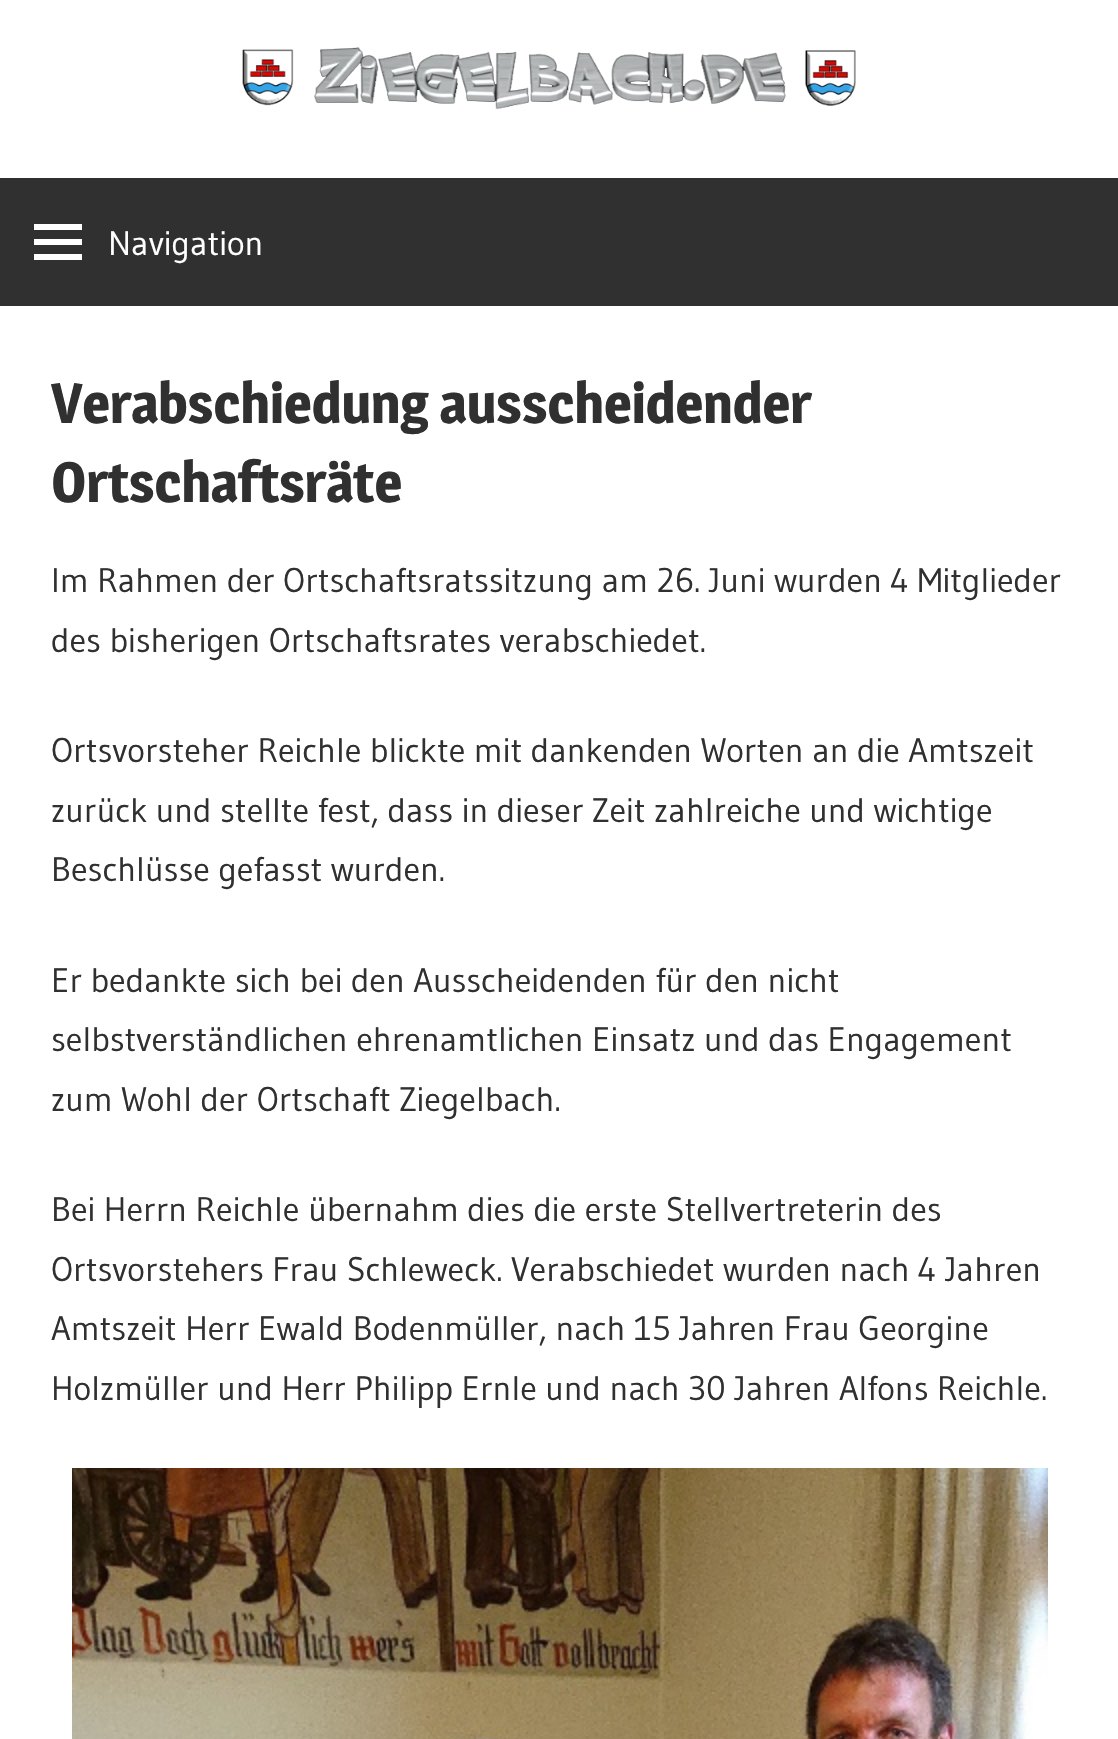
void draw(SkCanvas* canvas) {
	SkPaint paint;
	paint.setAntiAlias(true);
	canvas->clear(0xffffffff);
	canvas->drawImageRect(SkImages::DeferredFromEncodedData(SkData::MakeFromFileName("img1.png")), SkRect::MakeXYWH(242, 47, 614, 63), SkSamplingOptions());
	paint.setColor(0xff303030);
	canvas->drawRect(SkRect::MakeXYWH(0, 178, 1118, 128), paint);
	canvas->drawImageRect(SkImages::DeferredFromEncodedData(SkData::MakeFromFileName("img2.png")), SkRect::MakeXYWH(34, 224, 48, 36), SkSamplingOptions());
	SkFont f1(fontMgr->matchFamilyStyle("Gudea", SkFontStyle::Normal()), 34);
	f1.setSubpixel(true);
	paint.setColor(0xffffffff);
	canvas->drawString("Navigation", 108, 255, f1, paint);
	SkFont f2(fontMgr->matchFamilyStyle("Magra", SkFontStyle::Bold()), 56);
	f2.setSubpixel(true);
	paint.setColor(0xff303030);
	canvas->drawString("Verabschiedung ausscheidender", 51, 423, f2, paint);
	canvas->drawString("Ortschaftsräte", 51, 502, f2, paint);
	canvas->drawString("Im Rahmen der Ortschaftsratssitzung am 26. Juni wurden 4 Mitglieder", 51, 592, f1, paint);
	canvas->drawString("des bisherigen Ortschaftsrates verabschiedet.", 51, 652, f1, paint);
	canvas->drawString("Ortsvorsteher Reichle blickte mit dankenden Worten an die Amtszeit", 51, 762, f1, paint);
	canvas->drawString("zurück und stellte fest, dass in dieser Zeit zahlreiche und wichtige", 51, 822, f1, paint);
	canvas->drawString("Beschlüsse gefasst wurden.", 51, 881, f1, paint);
	canvas->drawString("Er bedankte sich bei den Ausscheidenden für den nicht", 51, 992, f1, paint);
	canvas->drawString("selbstverständlichen ehrenamtlichen Einsatz und das Engagement", 51, 1051, f1, paint);
	canvas->drawString("zum Wohl der Ortschaft Ziegelbach.", 51, 1111, f1, paint);
	canvas->drawString("Bei Herrn Reichle übernahm dies die erste Stellvertreterin des", 51, 1221, f1, paint);
	canvas->drawString("Ortsvorstehers Frau Schleweck. Verabschiedet wurden nach 4 Jahren", 51, 1281, f1, paint);
	canvas->drawString("Amtszeit Herr Ewald Bodenmüller, nach 15 Jahren Frau Georgine", 51, 1340, f1, paint);
	canvas->drawString("Holzmüller und Herr Philipp Ernle und nach 30 Jahren Alfons Reichle.", 51, 1400, f1, paint);
	canvas->drawImageRect(SkImages::DeferredFromEncodedData(SkData::MakeFromFileName("img3.png")), SkRect::MakeXYWH(72, 1468, 976, 271), SkSamplingOptions());
}
